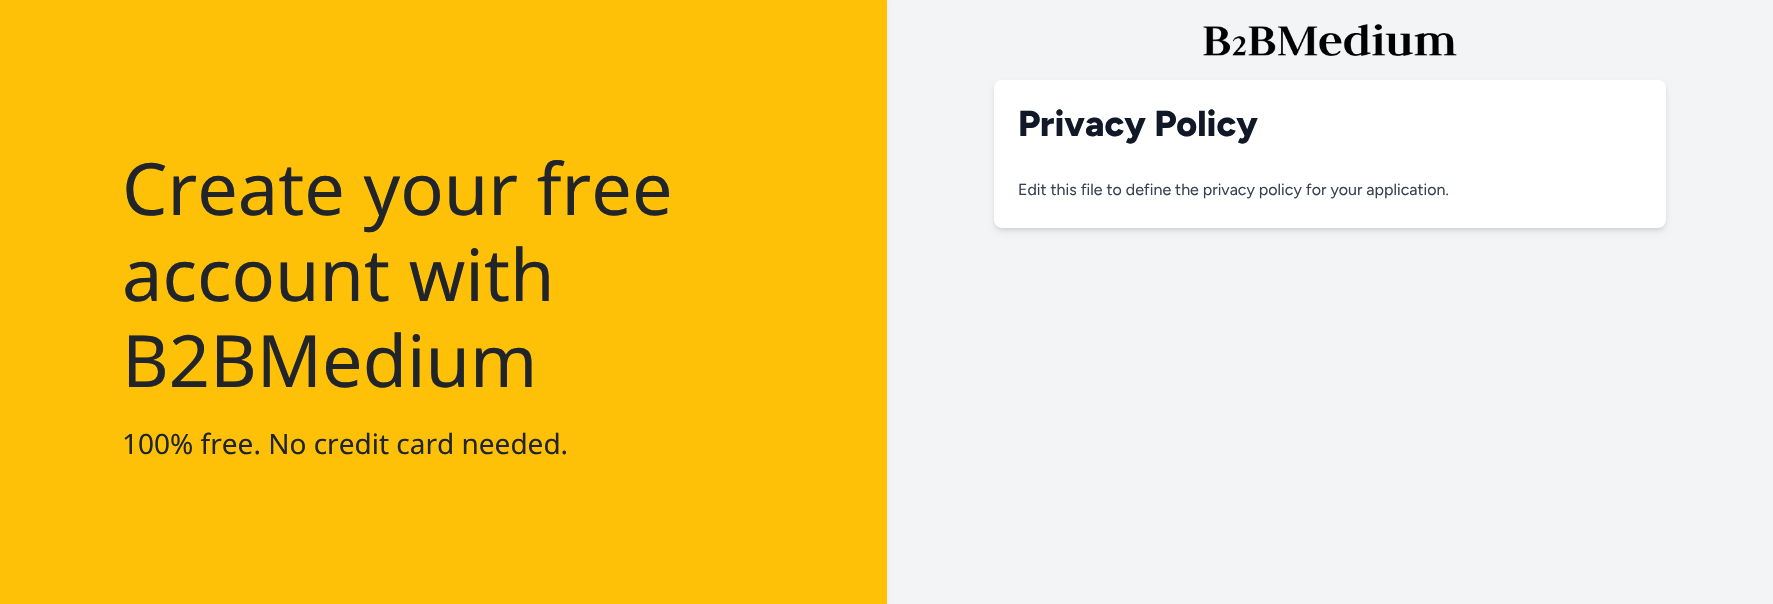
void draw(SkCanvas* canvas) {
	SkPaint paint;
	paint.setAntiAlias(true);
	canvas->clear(0xfff3f4f6);
	paint.setColor(0x12000000);
	paint.setMaskFilter(SkMaskFilter::MakeBlur(kNormal_SkBlurStyle, 2));
	canvas->drawRect(SkRect::MakeXYWH(0, 2, 887, 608), paint);
	paint.setMaskFilter(nullptr);
	paint.setColor(0xffffc107);
	canvas->drawRect(SkRect::MakeXYWH(0, 0, 887, 604), paint);
	SkFont f1(fontMgr->matchFamilyStyle("Noto Sans", SkFontStyle::Normal()), 72);
	f1.setSubpixel(true);
	paint.setColor(0xff212529);
	canvas->drawString("Create your free", 122, 215, f1, paint);
	canvas->drawString("account with", 122, 301, f1, paint);
	canvas->drawString("B2BMedium", 122, 387, f1, paint);
	SkFont f2(fontMgr->matchFamilyStyle("Noto Sans", SkFontStyle::Normal()), 28);
	f2.setSubpixel(true);
	canvas->drawString("100% free. No credit card needed.", 122, 454, f2, paint);
	canvas->drawImageRect(SkImages::DeferredFromEncodedData(SkData::MakeFromFileName("img1.png")), SkRect::MakeXYWH(1203, 24, 254, 32), SkSamplingOptions());
	paint.setColor(0x1a000000);
	paint.setMaskFilter(SkMaskFilter::MakeBlur(kNormal_SkBlurStyle, 2));
	canvas->drawRoundRect(SkRect::MakeXYWH(996, 84, 668, 144), 6, 6, paint);
	paint.setMaskFilter(nullptr);
	paint.setMaskFilter(SkMaskFilter::MakeBlur(kNormal_SkBlurStyle, 3));
	canvas->drawRoundRect(SkRect::MakeXYWH(995, 85, 670, 146), 7, 7, paint);
	paint.setMaskFilter(nullptr);
	paint.setColor(0xffffffff);
	canvas->drawRoundRect(SkRect::MakeXYWH(994, 80, 672, 148), 8, 8, paint);
	SkFont f3(fontMgr->matchFamilyStyle("Figtree", SkFontStyle(800, SkFontStyle::kNormal_Width, SkFontStyle::kUpright_Slant)), 36);
	f3.setSubpixel(true);
	paint.setColor(0xff111827);
	canvas->drawString("Privacy Policy", 1018, 136, f3, paint);
	SkFont f4(fontMgr->matchFamilyStyle("Figtree", SkFontStyle::Normal()), 16);
	f4.setSubpixel(true);
	paint.setColor(0xff374151);
	canvas->drawString("Edit this file to define the privacy policy for your application.", 1018, 195, f4, paint);
}
